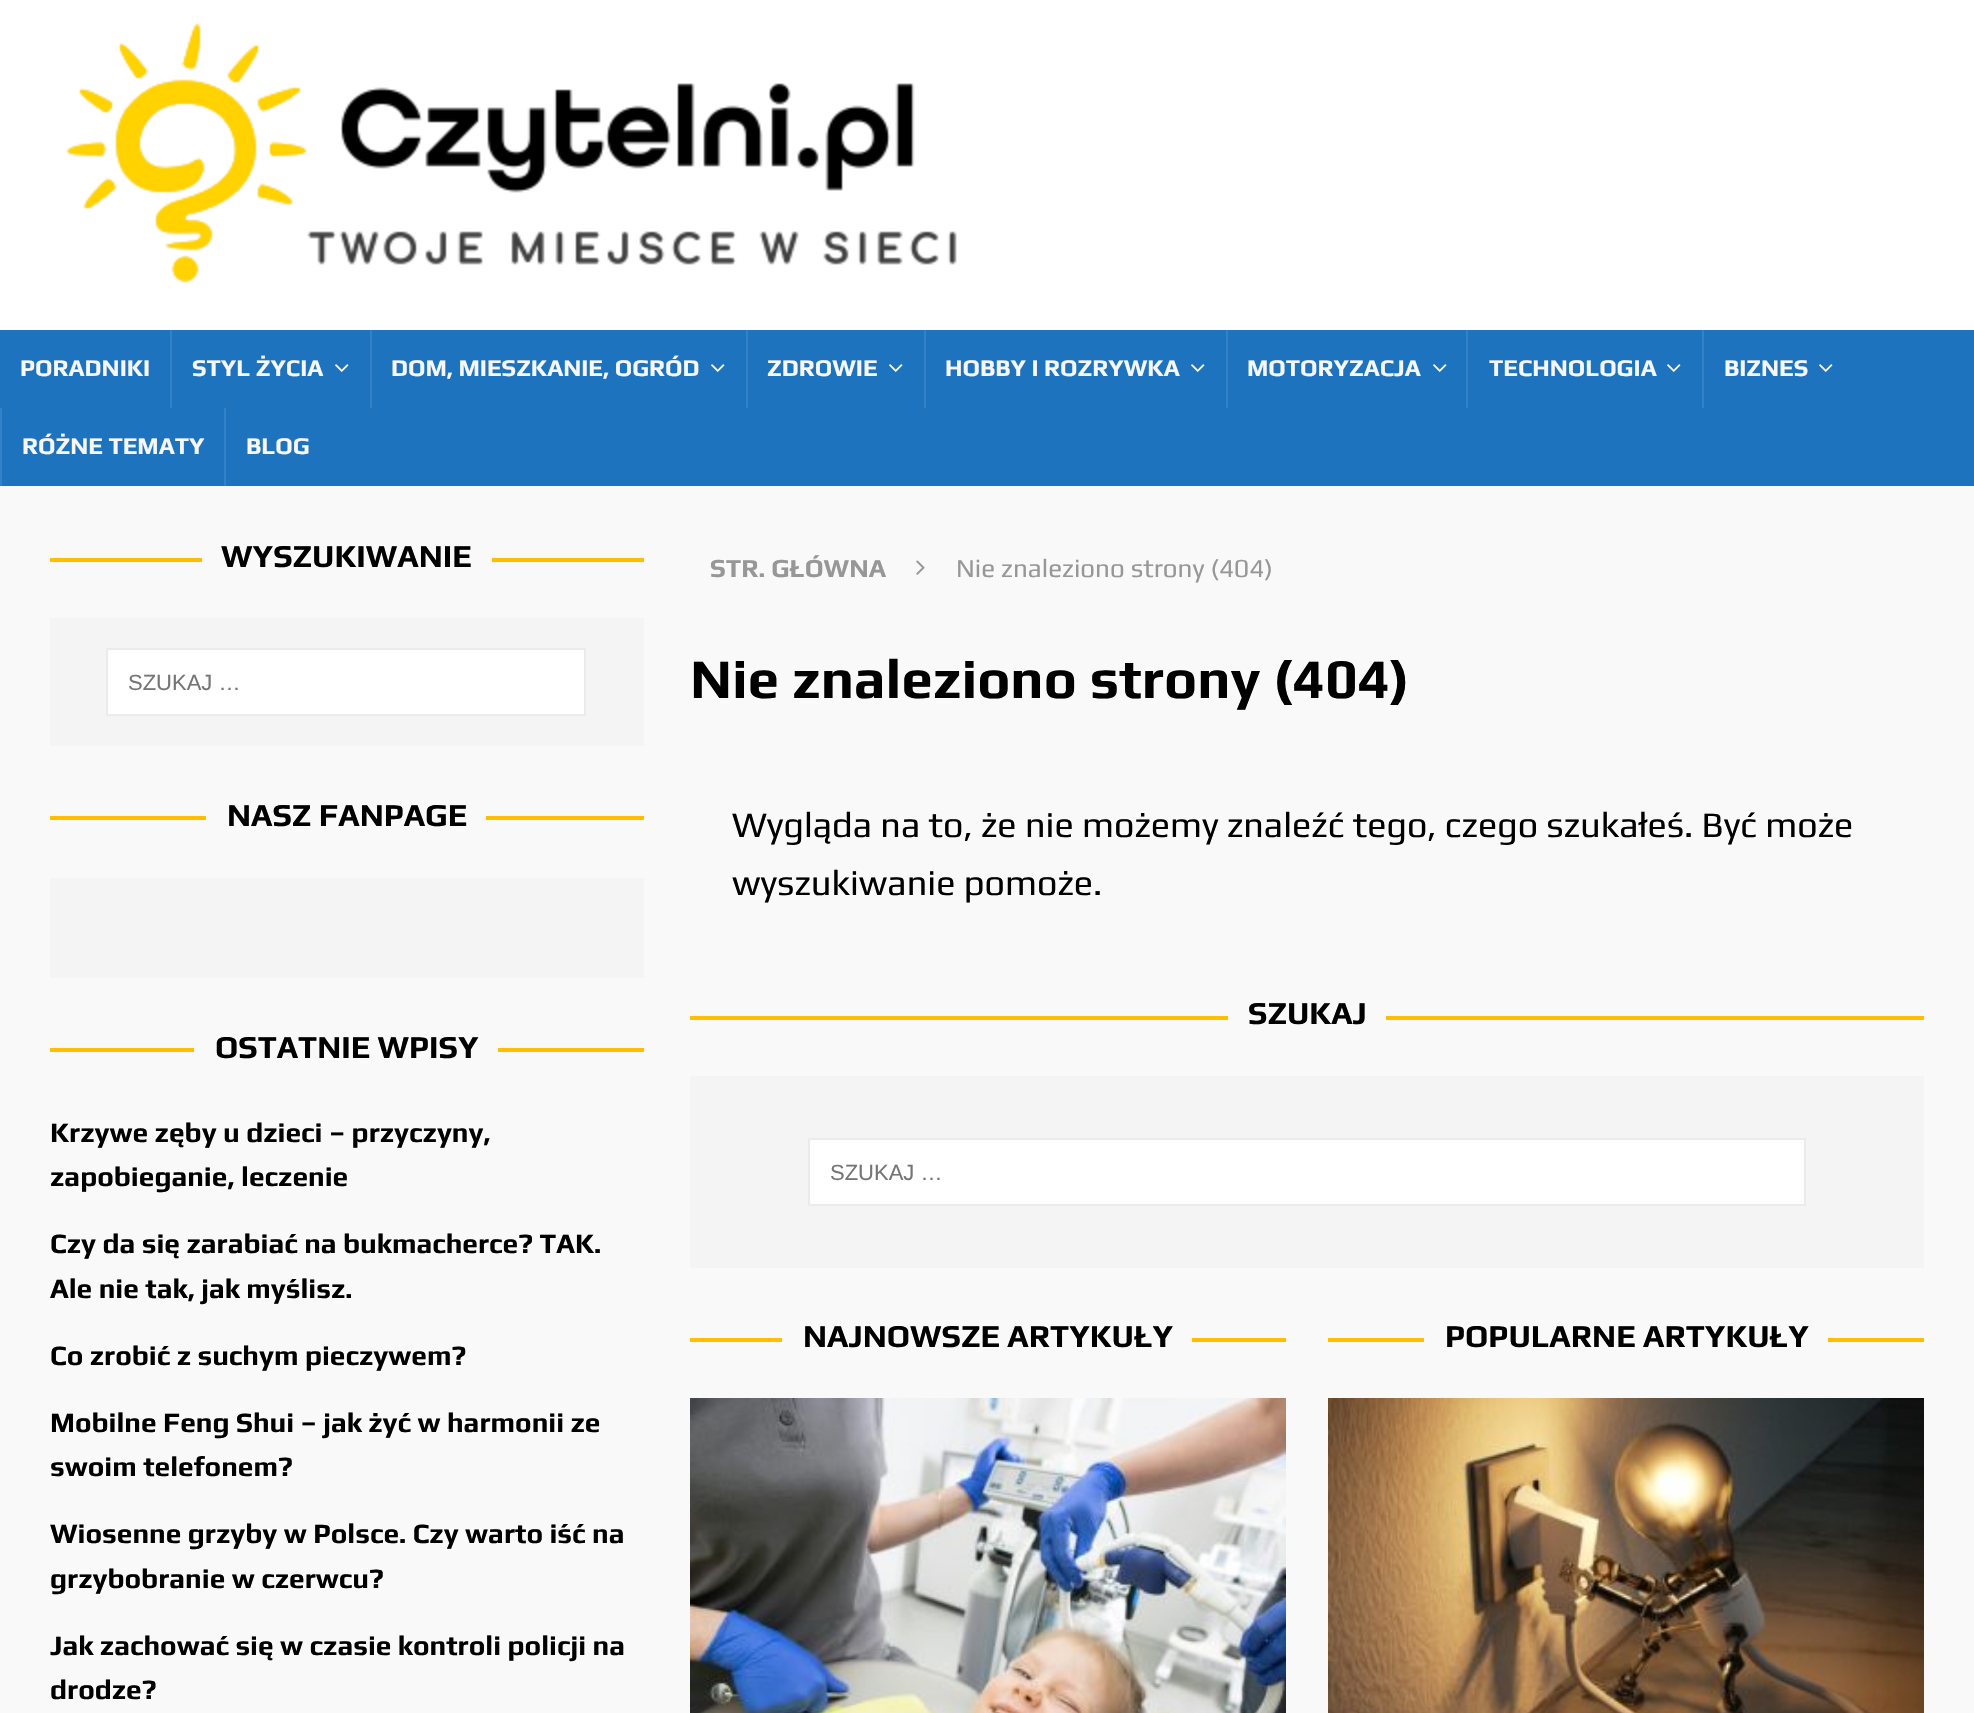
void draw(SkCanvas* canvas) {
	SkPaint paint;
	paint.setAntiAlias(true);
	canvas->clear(0xffffffff);
	canvas->drawImageRect(SkImages::DeferredFromEncodedData(SkData::MakeFromFileName("img1.png")), SkRect::MakeXYWH(65, 23, 892, 260), SkSamplingOptions());
	paint.setColor(0xff1e73be);
	canvas->drawRect(SkRect::MakeXYWH(0, 330, 1974, 156), paint);
	SkFont f1(fontMgr->matchFamilyStyle("Play", SkFontStyle::Bold()), 24);
	f1.setSubpixel(true);
	paint.setColor(0xfff7f7f7);
	canvas->drawString("PORADNIKI", 20, 376, f1, paint);
	paint.setColor(0xff3581c5);
	canvas->drawRect(SkRect::MakeXYWH(170, 330, 2, 78), paint);
	paint.setColor(0xfff7f7f7);
	canvas->drawString("STYL ŻYCIA", 192, 376, f1, paint);
	canvas->drawImageRect(SkImages::DeferredFromEncodedData(SkData::MakeFromFileName("img2.png")), SkRect::MakeXYWH(335, 364, 14, 8), SkSamplingOptions());
	paint.setColor(0xff3581c5);
	canvas->drawRect(SkRect::MakeXYWH(370, 330, 2, 78), paint);
	paint.setColor(0xfff7f7f7);
	canvas->drawString("DOM, MIESZKANIE, OGRÓD", 391, 376, f1, paint);
	canvas->drawImageRect(SkImages::DeferredFromEncodedData(SkData::MakeFromFileName("img2.png")), SkRect::MakeXYWH(711, 364, 14, 8), SkSamplingOptions());
	paint.setColor(0xff3581c5);
	canvas->drawRect(SkRect::MakeXYWH(746, 330, 2, 78), paint);
	paint.setColor(0xfff7f7f7);
	canvas->drawString("ZDROWIE", 767, 376, f1, paint);
	canvas->drawImageRect(SkImages::DeferredFromEncodedData(SkData::MakeFromFileName("img2.png")), SkRect::MakeXYWH(889, 364, 14, 8), SkSamplingOptions());
	paint.setColor(0xff3581c5);
	canvas->drawRect(SkRect::MakeXYWH(924, 330, 2, 78), paint);
	paint.setColor(0xfff7f7f7);
	canvas->drawString("HOBBY I ROZRYWKA", 945, 376, f1, paint);
	canvas->drawImageRect(SkImages::DeferredFromEncodedData(SkData::MakeFromFileName("img2.png")), SkRect::MakeXYWH(1191, 364, 14, 8), SkSamplingOptions());
	paint.setColor(0xff3581c5);
	canvas->drawRect(SkRect::MakeXYWH(1226, 330, 2, 78), paint);
	paint.setColor(0xfff7f7f7);
	canvas->drawString("MOTORYZACJA", 1247, 376, f1, paint);
	canvas->drawImageRect(SkImages::DeferredFromEncodedData(SkData::MakeFromFileName("img2.png")), SkRect::MakeXYWH(1433, 364, 14, 8), SkSamplingOptions());
	paint.setColor(0xff3581c5);
	canvas->drawRect(SkRect::MakeXYWH(1466, 330, 2, 78), paint);
	paint.setColor(0xfff7f7f7);
	canvas->drawString("TECHNOLOGIA", 1489, 376, f1, paint);
	canvas->drawImageRect(SkImages::DeferredFromEncodedData(SkData::MakeFromFileName("img2.png")), SkRect::MakeXYWH(1667, 364, 14, 8), SkSamplingOptions());
	paint.setColor(0xff3581c5);
	canvas->drawRect(SkRect::MakeXYWH(1702, 330, 2, 78), paint);
	paint.setColor(0xfff7f7f7);
	canvas->drawString("BIZNES", 1724, 376, f1, paint);
	canvas->drawImageRect(SkImages::DeferredFromEncodedData(SkData::MakeFromFileName("img2.png")), SkRect::MakeXYWH(1819, 364, 14, 8), SkSamplingOptions());
	paint.setColor(0xff3581c5);
	canvas->drawRect(SkRect::MakeXYWH(0, 408, 2, 78), paint);
	paint.setColor(0xfff7f7f7);
	canvas->drawString("RÓŻNE TEMATY", 22, 454, f1, paint);
	paint.setColor(0xff3581c5);
	canvas->drawRect(SkRect::MakeXYWH(224, 408, 2, 78), paint);
	paint.setColor(0xfff7f7f7);
	canvas->drawString("BLOG", 246, 454, f1, paint);
	paint.setColor(0xfff9f9f9);
	canvas->drawRect(SkRect::MakeXYWH(0, 486, 1974, 1227), paint);
	paint.setColor(0xffffbf00);
	canvas->drawRect(SkRect::MakeXYWH(50, 558, 594, 4), paint);
	paint.setColor(0xfff9f9f9);
	canvas->drawRect(SkRect::MakeXYWH(202, 558, 290, 4), paint);
	SkFont f2(fontMgr->matchFamilyStyle("Play", SkFontStyle::Bold()), 32);
	f2.setSubpixel(true);
	paint.setColor(0xff000000);
	canvas->drawString("WYSZUKIWANIE", 221, 567, f2, paint);
	paint.setColor(0xfff4f4f4);
	canvas->drawRect(SkRect::MakeXYWH(50, 618, 594, 128), paint);
	paint.setColor(0xffffffff);
	canvas->drawRect(SkRect::MakeXYWH(107, 649, 478, 66), paint);
	paint.setStroke(true);
	paint.setStrokeWidth(2);
	paint.setColor(0xffebebeb);
	canvas->drawRect(SkRect::MakeXYWH(107, 649, 478, 66), paint);
	SkFont f3(fontMgr->matchFamilyStyle("Liberation Sans", SkFontStyle::Normal()), 22);
	f3.setSubpixel(true);
	paint.setStroke(false);
	paint.setColor(0xff757575);
	canvas->drawString("SZUKAJ …", 128, 690, f3, paint);
	paint.setColor(0xffffbf00);
	canvas->drawRect(SkRect::MakeXYWH(50, 816, 594, 4), paint);
	paint.setColor(0xfff9f9f9);
	canvas->drawRect(SkRect::MakeXYWH(206, 816, 280, 4), paint);
	paint.setColor(0xff000000);
	canvas->drawString("NASZ FANPAGE", 227, 826, f2, paint);
	paint.setColor(0xfff4f4f4);
	canvas->drawRect(SkRect::MakeXYWH(50, 878, 594, 100), paint);
	paint.setColor(0xffffbf00);
	canvas->drawRect(SkRect::MakeXYWH(50, 1048, 594, 4), paint);
	paint.setColor(0xfff9f9f9);
	canvas->drawRect(SkRect::MakeXYWH(194, 1048, 304, 4), paint);
	paint.setColor(0xff000000);
	canvas->drawString("OSTATNIE WPISY", 215, 1058, f2, paint);
	SkFont f4(fontMgr->matchFamilyStyle("Play", SkFontStyle::Bold()), 28);
	f4.setSubpixel(true);
	canvas->drawString("Krzywe zęby u dzieci – przyczyny,", 50, 1142, f4, paint);
	canvas->drawString("zapobieganie, leczenie", 50, 1186, f4, paint);
	canvas->drawString("Czy da się zarabiać na bukmacherce? TAK.", 50, 1253, f4, paint);
	canvas->drawString("Ale nie tak, jak myślisz.", 50, 1298, f4, paint);
	canvas->drawString("Co zrobić z suchym pieczywem?", 50, 1365, f4, paint);
	canvas->drawString("Mobilne Feng Shui – jak żyć w harmonii ze", 50, 1432, f4, paint);
	canvas->drawString("swoim telefonem?", 50, 1476, f4, paint);
	canvas->drawString("Wiosenne grzyby w Polsce. Czy warto iść na", 50, 1543, f4, paint);
	canvas->drawString("grzybobranie w czerwcu?", 50, 1588, f4, paint);
	canvas->drawString("Jak zachować się w czasie kontroli policji na", 50, 1655, f4, paint);
	canvas->drawString("drodze?", 50, 1699, f4, paint);
	SkFont f5(fontMgr->matchFamilyStyle("Play", SkFontStyle::Bold()), 26);
	f5.setSubpixel(true);
	paint.setColor(0xff979797);
	canvas->drawString("STR. GŁÓWNA", 710, 577, f5, paint);
	canvas->drawImageRect(SkImages::DeferredFromEncodedData(SkData::MakeFromFileName("img3.png")), SkRect::MakeXYWH(916, 560, 9, 15), SkSamplingOptions());
	SkFont f6(fontMgr->matchFamilyStyle("Play", SkFontStyle::Normal()), 26);
	f6.setSubpixel(true);
	canvas->drawString("Nie znaleziono strony (404)", 956, 577, f6, paint);
	SkFont f7(fontMgr->matchFamilyStyle("Play", SkFontStyle::Bold()), 56);
	f7.setSubpixel(true);
	paint.setColor(0xff000000);
	canvas->drawString("Nie znaleziono strony (404)", 690, 698, f7, paint);
	SkFont f8(fontMgr->matchFamilyStyle("Play", SkFontStyle::Normal()), 36);
	f8.setSubpixel(true);
	canvas->drawString("Wygląda na to, że nie możemy znaleźć tego, czego szukałeś. Być może", 732, 837, f8, paint);
	canvas->drawString("wyszukiwanie pomoże.", 732, 895, f8, paint);
	paint.setColor(0xffffbf00);
	canvas->drawRect(SkRect::MakeXYWH(690, 1016, 1234, 4), paint);
	paint.setColor(0xfff9f9f9);
	canvas->drawRect(SkRect::MakeXYWH(1228, 1016, 158, 4), paint);
	paint.setColor(0xff000000);
	canvas->drawString("SZUKAJ", 1248, 1024, f2, paint);
	paint.setColor(0xfff4f4f4);
	canvas->drawRect(SkRect::MakeXYWH(690, 1076, 1234, 192), paint);
	paint.setColor(0xffffffff);
	canvas->drawRect(SkRect::MakeXYWH(809, 1139, 996, 66), paint);
	paint.setStroke(true);
	paint.setColor(0xffebebeb);
	canvas->drawRect(SkRect::MakeXYWH(809, 1139, 996, 66), paint);
	paint.setStroke(false);
	paint.setColor(0xff757575);
	canvas->drawString("SZUKAJ …", 830, 1180, f3, paint);
	paint.setColor(0xffffbf00);
	canvas->drawRect(SkRect::MakeXYWH(690, 1338, 596, 4), paint);
	paint.setColor(0xfff9f9f9);
	canvas->drawRect(SkRect::MakeXYWH(782, 1338, 410, 4), paint);
	paint.setColor(0xff000000);
	canvas->drawString("NAJNOWSZE ARTYKUŁY", 803, 1347, f2, paint);
	canvas->drawImageRect(SkImages::DeferredFromEncodedData(SkData::MakeFromFileName("img4.png")), SkRect::MakeXYWH(690, 1398, 596, 315), SkSamplingOptions());
	paint.setColor(0xffffbf00);
	canvas->drawRect(SkRect::MakeXYWH(1328, 1338, 596, 4), paint);
	paint.setColor(0xfff9f9f9);
	canvas->drawRect(SkRect::MakeXYWH(1424, 1338, 404, 4), paint);
	paint.setColor(0xff000000);
	canvas->drawString("POPULARNE ARTYKUŁY", 1445, 1347, f2, paint);
	canvas->drawImageRect(SkImages::DeferredFromEncodedData(SkData::MakeFromFileName("img5.png")), SkRect::MakeXYWH(1328, 1398, 596, 315), SkSamplingOptions());
}
